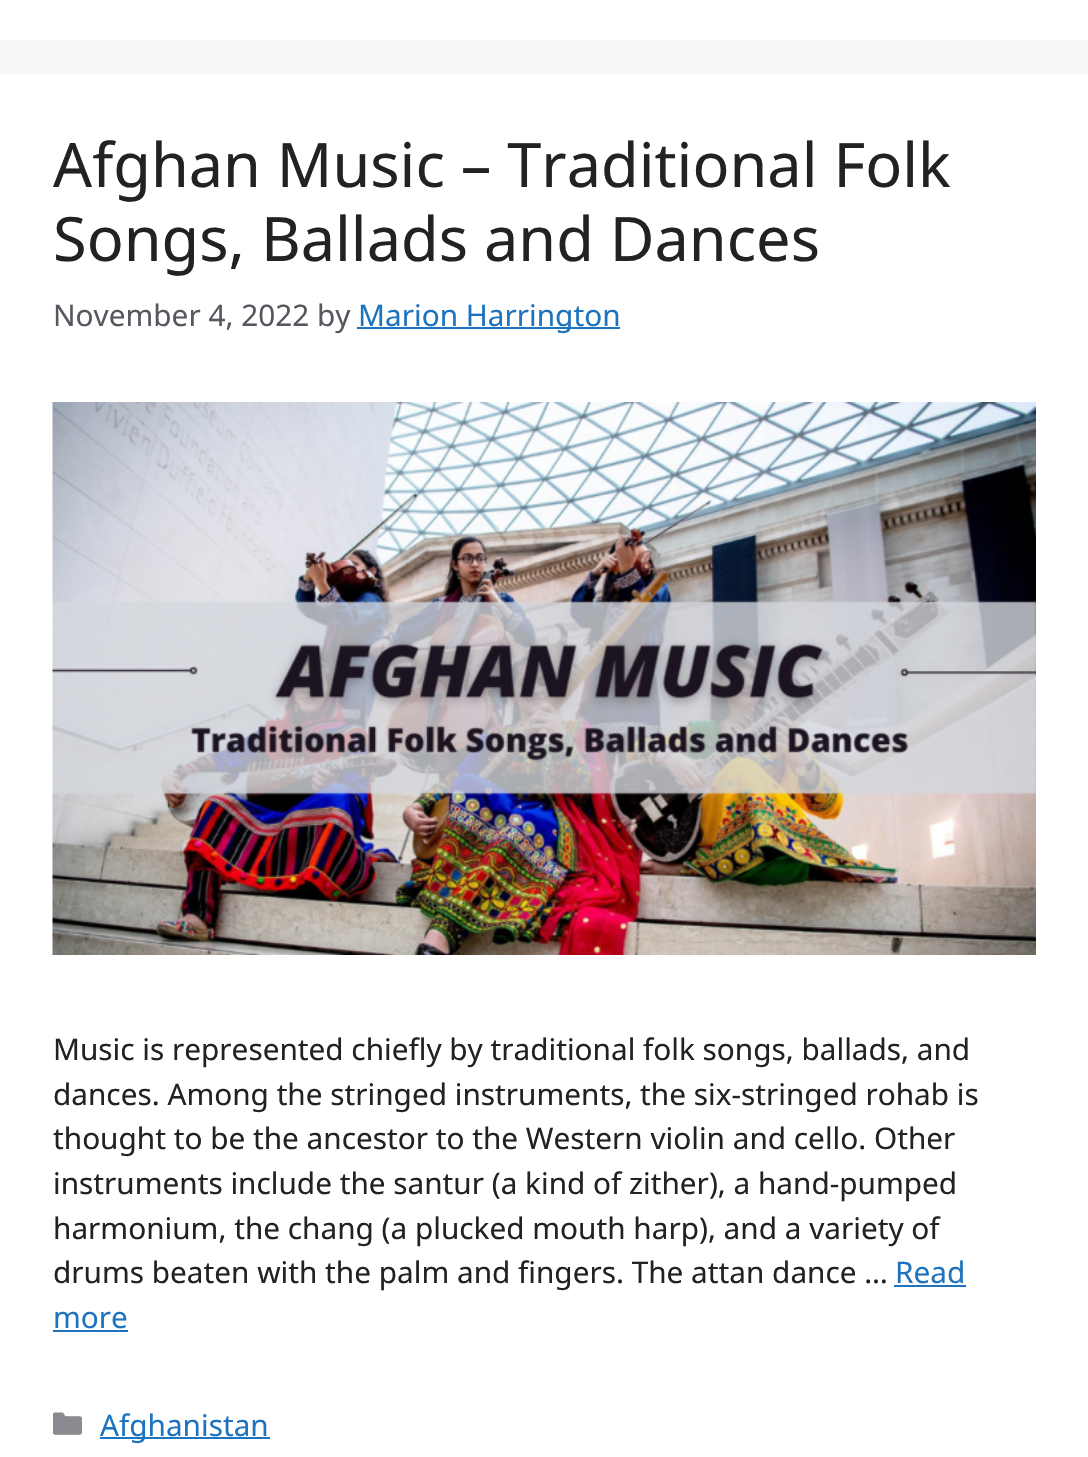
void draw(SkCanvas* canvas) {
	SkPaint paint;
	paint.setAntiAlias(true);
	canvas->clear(0xfff7f8f9);
	paint.setColor(0xffffffff);
	canvas->drawRect(SkRect::MakeXYWH(0, 0, 1088, 40), paint);
	canvas->drawRect(SkRect::MakeXYWH(0, 75, 1088, 1382), paint);
	SkFont f1(fontMgr->matchFamilyStyle("Noto Sans", SkFontStyle::Normal()), 61.25);
	f1.setSubpixel(true);
	paint.setColor(0xff222222);
	canvas->drawString("Afghan Music – Traditional Folk", 53, 187, f1, paint);
	canvas->drawString("Songs, Ballads and Dances", 53, 261, f1, paint);
	SkFont f2(fontMgr->matchFamilyStyle("Noto Sans", SkFontStyle::Normal()), 29.75);
	f2.setSubpixel(true);
	paint.setColor(0xff575760);
	canvas->drawString("November 4, 2022 by", 53, 326, f2, paint);
	paint.setColor(0xff1e73be);
	canvas->drawRect(SkRect::MakeXYWH(357, 327, 263, 2), paint);
	canvas->drawString("Marion Harrington", 358, 326, f2, paint);
	canvas->drawImageRect(SkImages::DeferredFromEncodedData(SkData::MakeFromFileName("img1.png")), SkRect::MakeXYWH(52, 402, 984, 553), SkSamplingOptions());
	paint.setColor(0xff222222);
	canvas->drawString("Music is represented chiefly by traditional folk songs, ballads, and", 53, 1060, f2, paint);
	canvas->drawString("dances. Among the stringed instruments, the six-stringed rohab is", 53, 1105, f2, paint);
	canvas->drawString("thought to be the ancestor to the Western violin and cello. Other", 53, 1149, f2, paint);
	canvas->drawString("instruments include the santur (a kind of zither), a hand-pumped", 53, 1194, f2, paint);
	canvas->drawString("harmonium, the chang (a plucked mouth harp), and a variety of", 53, 1239, f2, paint);
	canvas->drawString("drums beaten with the palm and fingers. The attan dance …", 53, 1283, f2, paint);
	paint.setColor(0xff1e73be);
	canvas->drawString("Read", 895, 1283, f2, paint);
	canvas->drawRect(SkRect::MakeXYWH(894, 1285, 72, 2), paint);
	canvas->drawString("more", 53, 1328, f2, paint);
	canvas->drawRect(SkRect::MakeXYWH(53, 1330, 75, 2), paint);
	canvas->drawImageRect(SkImages::DeferredFromEncodedData(SkData::MakeFromFileName("img2.png")), SkRect::MakeXYWH(53, 1412, 29, 23), SkSamplingOptions());
	canvas->drawRect(SkRect::MakeXYWH(100, 1437, 170, 2), paint);
	canvas->drawString("Afghanistan", 100, 1436, f2, paint);
}
